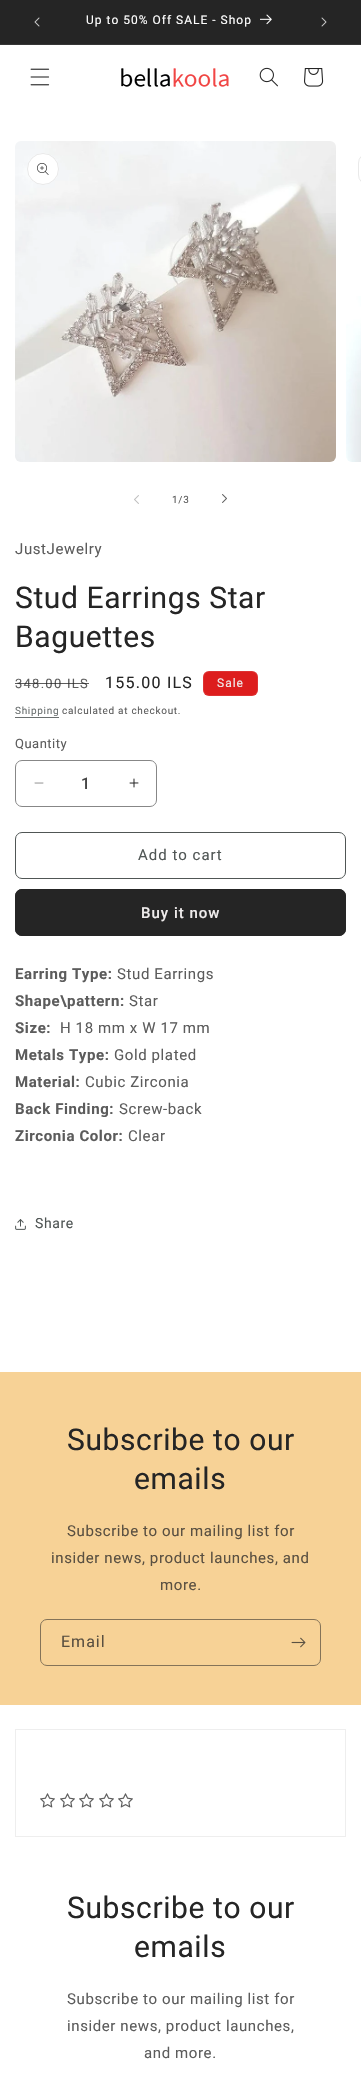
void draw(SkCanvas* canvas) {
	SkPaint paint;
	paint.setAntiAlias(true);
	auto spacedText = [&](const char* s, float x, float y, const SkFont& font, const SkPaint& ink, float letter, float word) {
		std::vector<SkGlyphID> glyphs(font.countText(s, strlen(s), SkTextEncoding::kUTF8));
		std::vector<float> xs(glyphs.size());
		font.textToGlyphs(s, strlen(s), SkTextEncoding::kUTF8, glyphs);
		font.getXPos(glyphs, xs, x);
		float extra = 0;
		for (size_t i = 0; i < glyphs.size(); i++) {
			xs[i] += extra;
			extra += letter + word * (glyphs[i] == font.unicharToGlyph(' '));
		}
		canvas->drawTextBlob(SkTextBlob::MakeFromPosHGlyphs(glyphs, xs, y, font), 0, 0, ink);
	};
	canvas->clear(0xffffffff);
	paint.setColor(0xff252525);
	canvas->drawRect(SkRect::MakeXYWH(0, 0, 361, 44), paint);
	paint.setColor(0xff363636);
	canvas->drawRect(SkRect::MakeXYWH(0, 44, 361, 1), paint);
	canvas->drawImageRect(SkImages::DeferredFromEncodedData(SkData::MakeFromFileName("img1.png")), SkRect::MakeXYWH(34, 17, 6, 10), SkSamplingOptions());
	SkFont f1(fontMgr->matchFamilyStyle("Roboto", SkFontStyle::Normal()), 12);
	f1.setSubpixel(true);
	paint.setColor(0xffffffff);
	spacedText("Up to 50% Off SALE - Shop", 86, 24, f1, paint, 1, 0);
	canvas->drawImageRect(SkImages::DeferredFromEncodedData(SkData::MakeFromFileName("img2.png")), SkRect::MakeXYWH(260, 14, 12, 11), SkSamplingOptions());
	canvas->drawImageRect(SkImages::DeferredFromEncodedData(SkData::MakeFromFileName("img3.png")), SkRect::MakeXYWH(321, 17, 6, 10), SkSamplingOptions());
	canvas->drawImageRect(SkImages::DeferredFromEncodedData(SkData::MakeFromFileName("img4.png")), SkRect::MakeXYWH(30, 68, 20, 18), SkSamplingOptions());
	canvas->drawImageRect(SkImages::DeferredFromEncodedData(SkData::MakeFromFileName("img5.png")), SkRect::MakeXYWH(121, 68, 108, 19), SkSamplingOptions());
	canvas->drawImageRect(SkImages::DeferredFromEncodedData(SkData::MakeFromFileName("img6.png")), SkRect::MakeXYWH(259, 67, 19, 20), SkSamplingOptions());
	canvas->drawImageRect(SkImages::DeferredFromEncodedData(SkData::MakeFromFileName("img7.png")), SkRect::MakeXYWH(304, 68, 20, 19), SkSamplingOptions());
	canvas->drawImageRect(SkImages::DeferredFromEncodedData(SkData::MakeFromFileName("img8.png")), SkRect::MakeXYWH(15, 141, 321, 321), SkSamplingOptions());
	canvas->drawCircle(43, 169, 16, paint);
	paint.setStroke(true);
	paint.setStrokeWidth(1);
	paint.setColor(0x1a252525);
	canvas->drawCircle(43, 169, 15.5, paint);
	canvas->drawImageRect(SkImages::DeferredFromEncodedData(SkData::MakeFromFileName("img9.png")), SkRect::MakeXYWH(37, 163, 12, 12), SkSamplingOptions());
	paint.setColor(0xffe9e9e9);
	canvas->drawRoundRect(SkRect::MakeXYWH(358.5, 153.5, 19, 31), 15.5, 15.5, paint);
	canvas->drawImageRect(SkImages::DeferredFromEncodedData(SkData::MakeFromFileName("img10.png")), SkRect::MakeXYWH(346, 296, 15, 166), SkSamplingOptions());
	canvas->drawImageRect(SkImages::DeferredFromEncodedData(SkData::MakeFromFileName("img11.png")), SkRect::MakeXYWH(134, 495, 5, 9), SkSamplingOptions());
	SkFont f2(fontMgr->matchFamilyStyle("Roboto", SkFontStyle::Normal()), 10);
	f2.setSubpixel(true);
	paint.setStroke(false);
	paint.setColor(0xff5c5c5c);
	spacedText("1/3", 172, 503, f2, paint, 0.7, 0);
	canvas->drawImageRect(SkImages::DeferredFromEncodedData(SkData::MakeFromFileName("img12.png")), SkRect::MakeXYWH(222, 494, 5, 9), SkSamplingOptions());
	SkFont f3(fontMgr->matchFamilyStyle("Roboto", SkFontStyle::Normal()), 15);
	f3.setSubpixel(true);
	spacedText("JustJewelry", 15, 554, f3, paint, 0.6, 0);
	SkFont f4(fontMgr->matchFamilyStyle("Roboto", SkFontStyle::Normal()), 30);
	f4.setSubpixel(true);
	paint.setColor(0xff252525);
	spacedText("Stud Earrings Star", 15, 608, f4, paint, 0.6, 0);
	spacedText("Baguettes", 15, 647, f4, paint, 0.6, 0);
	SkFont f5(fontMgr->matchFamilyStyle("Roboto", SkFontStyle::Normal()), 13);
	f5.setSubpixel(true);
	paint.setColor(0xff5c5c5c);
	spacedText("348.00 ILS", 15, 688, f5, paint, 1.25, 0);
	paint.setColor(0xbf252525);
	canvas->drawRect(SkRect::MakeXYWH(15, 683, 74, 1), paint);
	SkFont f6(fontMgr->matchFamilyStyle("Roboto", SkFontStyle::Normal()), 16);
	f6.setSubpixel(true);
	paint.setColor(0xff252525);
	spacedText("155.00 ILS", 105, 688, f6, paint, 1.25, 0);
	paint.setColor(0xffdd1d1d);
	canvas->drawRoundRect(SkRect::MakeXYWH(203, 671, 55, 25), 6, 6, paint);
	paint.setStroke(true);
	paint.setColor(0x1aefecec);
	canvas->drawRoundRect(SkRect::MakeXYWH(203.5, 671.5, 54, 24), 5.5, 5.5, paint);
	paint.setStroke(false);
	paint.setColor(0xffefecec);
	spacedText("Sale", 217, 687, f1, paint, 1, 0);
	paint.setColor(0xff6a6f6f);
	spacedText("Shipping", 15, 714, f2, paint, 0.7, 0);
	canvas->drawRect(SkRect::MakeXYWH(15, 717, 44, 1), paint);
	paint.setColor(0xff5c5c5c);
	spacedText("calculated at checkout.", 62, 714, f2, paint, 0.7, 0);
	spacedText("Quantity", 15, 748, f5, paint, 0.5, 0);
	canvas->drawImageRect(SkImages::DeferredFromEncodedData(SkData::MakeFromFileName("img13.png")), SkRect::MakeXYWH(34, 782, 10, 2), SkSamplingOptions());
	canvas->drawImageRect(SkImages::DeferredFromEncodedData(SkData::MakeFromFileName("img14.png")), SkRect::MakeXYWH(129, 778, 10, 10), SkSamplingOptions());
	paint.setStroke(true);
	paint.setColor(0xff878787);
	canvas->drawRoundRect(SkRect::MakeXYWH(15.5, 760.5, 141, 46), 6.5, 6.5, paint);
	SkFont f7(fontMgr->matchFamilyStyle("Roboto", SkFontStyle(500, SkFontStyle::kNormal_Width, SkFontStyle::kUpright_Slant)), 16);
	f7.setSubpixel(true);
	paint.setStroke(false);
	paint.setColor(0xff464646);
	canvas->drawString("1", 81, 789, f7, paint);
	paint.setStroke(true);
	paint.setColor(0xff505655);
	canvas->drawRoundRect(SkRect::MakeXYWH(15.5, 832.5, 330, 46), 6.5, 6.5, paint);
	paint.setStroke(false);
	spacedText("Add to cart", 138, 860, f3, paint, 1, 0);
	paint.setColor(0xff252525);
	canvas->drawRoundRect(SkRect::MakeXYWH(15, 889, 331, 47), 7, 7, paint);
	paint.setStroke(true);
	canvas->drawRoundRect(SkRect::MakeXYWH(15.5, 889.5, 330, 46), 6.5, 6.5, paint);
	SkFont f8(fontMgr->matchFamilyStyle("Roboto", SkFontStyle(500, SkFontStyle::kNormal_Width, SkFontStyle::kUpright_Slant)), 15);
	f8.setSubpixel(true);
	paint.setStroke(false);
	paint.setColor(0xffefecec);
	spacedText("Buy it now", 141, 918, f8, paint, 1, 0);
	SkFont f9(fontMgr->matchFamilyStyle("Roboto", SkFontStyle::Bold()), 15);
	f9.setSubpixel(true);
	paint.setColor(0xff5c5c5c);
	spacedText("Earring Type:", 15, 979, f9, paint, 0.6, 0);
	spacedText("Stud Earrings", 117, 979, f3, paint, 0.6, 0);
	spacedText("Shape\\pattern:", 15, 1006, f9, paint, 0.6, 0);
	spacedText("Star", 129, 1006, f3, paint, 0.6, 0);
	spacedText("Size:", 15, 1033, f9, paint, 0.6, 0);
	spacedText("H 18 mm x W 17 mm", 60, 1033, f3, paint, 0.6, 0);
	spacedText("Metals Type:", 15, 1060, f9, paint, 0.6, 0);
	spacedText("Gold plated", 114, 1060, f3, paint, 0.6, 0);
	spacedText("Material:", 15, 1087, f9, paint, 0.6, 0);
	spacedText("Cubic Zirconia", 85, 1087, f3, paint, 0.6, 0);
	spacedText("Back Finding:", 15, 1114, f9, paint, 0.6, 0);
	spacedText("Screw-back", 119, 1114, f3, paint, 0.6, 0);
	spacedText("Zirconia Color:", 15, 1141, f9, paint, 0.6, 0);
	spacedText("Clear", 128, 1141, f3, paint, 0.6, 0);
	canvas->drawImageRect(SkImages::DeferredFromEncodedData(SkData::MakeFromFileName("img15.png")), SkRect::MakeXYWH(15, 1219, 11, 11), SkSamplingOptions());
	SkFont f10(fontMgr->matchFamilyStyle("Roboto", SkFontStyle::Normal()), 14);
	f10.setSubpixel(true);
	paint.setColor(0xff505655);
	spacedText("Share", 35, 1228, f10, paint, 0.6, 0);
	paint.setColor(0xfff7d296);
	canvas->drawRect(SkRect::MakeXYWH(0, 1372, 361, 333), paint);
	paint.setColor(0xff252525);
	spacedText("Subscribe to our", 67, 1450, f4, paint, 0.6, 0);
	spacedText("emails", 134, 1489, f4, paint, 0.6, 0);
	paint.setColor(0xff5a5041);
	spacedText("Subscribe to our mailing list for", 67, 1536, f3, paint, 0.6, 0);
	spacedText("insider news, product launches, and", 51, 1563, f3, paint, 0.6, 0);
	spacedText("more.", 160, 1590, f3, paint, 0.6, 0);
	paint.setStroke(true);
	paint.setColor(0xff847358);
	canvas->drawRoundRect(SkRect::MakeXYWH(40.5, 1619.5, 280, 46), 6.5, 6.5, paint);
	paint.setStroke(false);
	paint.setColor(0xff5a5041);
	spacedText("Email", 61, 1647, f6, paint, 1, 0);
	canvas->drawImageRect(SkImages::DeferredFromEncodedData(SkData::MakeFromFileName("img16.png")), SkRect::MakeXYWH(291, 1637, 15, 11), SkSamplingOptions());
	paint.setStroke(true);
	paint.setColor(0xffeeeeee);
	canvas->drawRect(SkRect::MakeXYWH(15.5, 1729.5, 330, 107), paint);
	canvas->drawImageRect(SkImages::DeferredFromEncodedData(SkData::MakeFromFileName("img17.png")), SkRect::MakeXYWH(40, 1793, 15, 15), SkSamplingOptions());
	canvas->drawImageRect(SkImages::DeferredFromEncodedData(SkData::MakeFromFileName("img17.png")), SkRect::MakeXYWH(60, 1793, 15, 15), SkSamplingOptions());
	canvas->drawImageRect(SkImages::DeferredFromEncodedData(SkData::MakeFromFileName("img17.png")), SkRect::MakeXYWH(79, 1793, 15, 15), SkSamplingOptions());
	canvas->drawImageRect(SkImages::DeferredFromEncodedData(SkData::MakeFromFileName("img17.png")), SkRect::MakeXYWH(99, 1793, 15, 15), SkSamplingOptions());
	canvas->drawImageRect(SkImages::DeferredFromEncodedData(SkData::MakeFromFileName("img17.png")), SkRect::MakeXYWH(118, 1793, 15, 15), SkSamplingOptions());
	paint.setStroke(false);
	paint.setColor(0xff252525);
	spacedText("Subscribe to our", 67, 1918, f4, paint, 0.6, 0);
	spacedText("emails", 134, 1957, f4, paint, 0.6, 0);
	paint.setColor(0xff5c5c5c);
	spacedText("Subscribe to our mailing list for", 67, 2004, f3, paint, 0.6, 0);
	spacedText("insider news, product launches,", 67, 2031, f3, paint, 0.6, 0);
	spacedText("and more.", 144, 2058, f3, paint, 0.6, 0);
}
